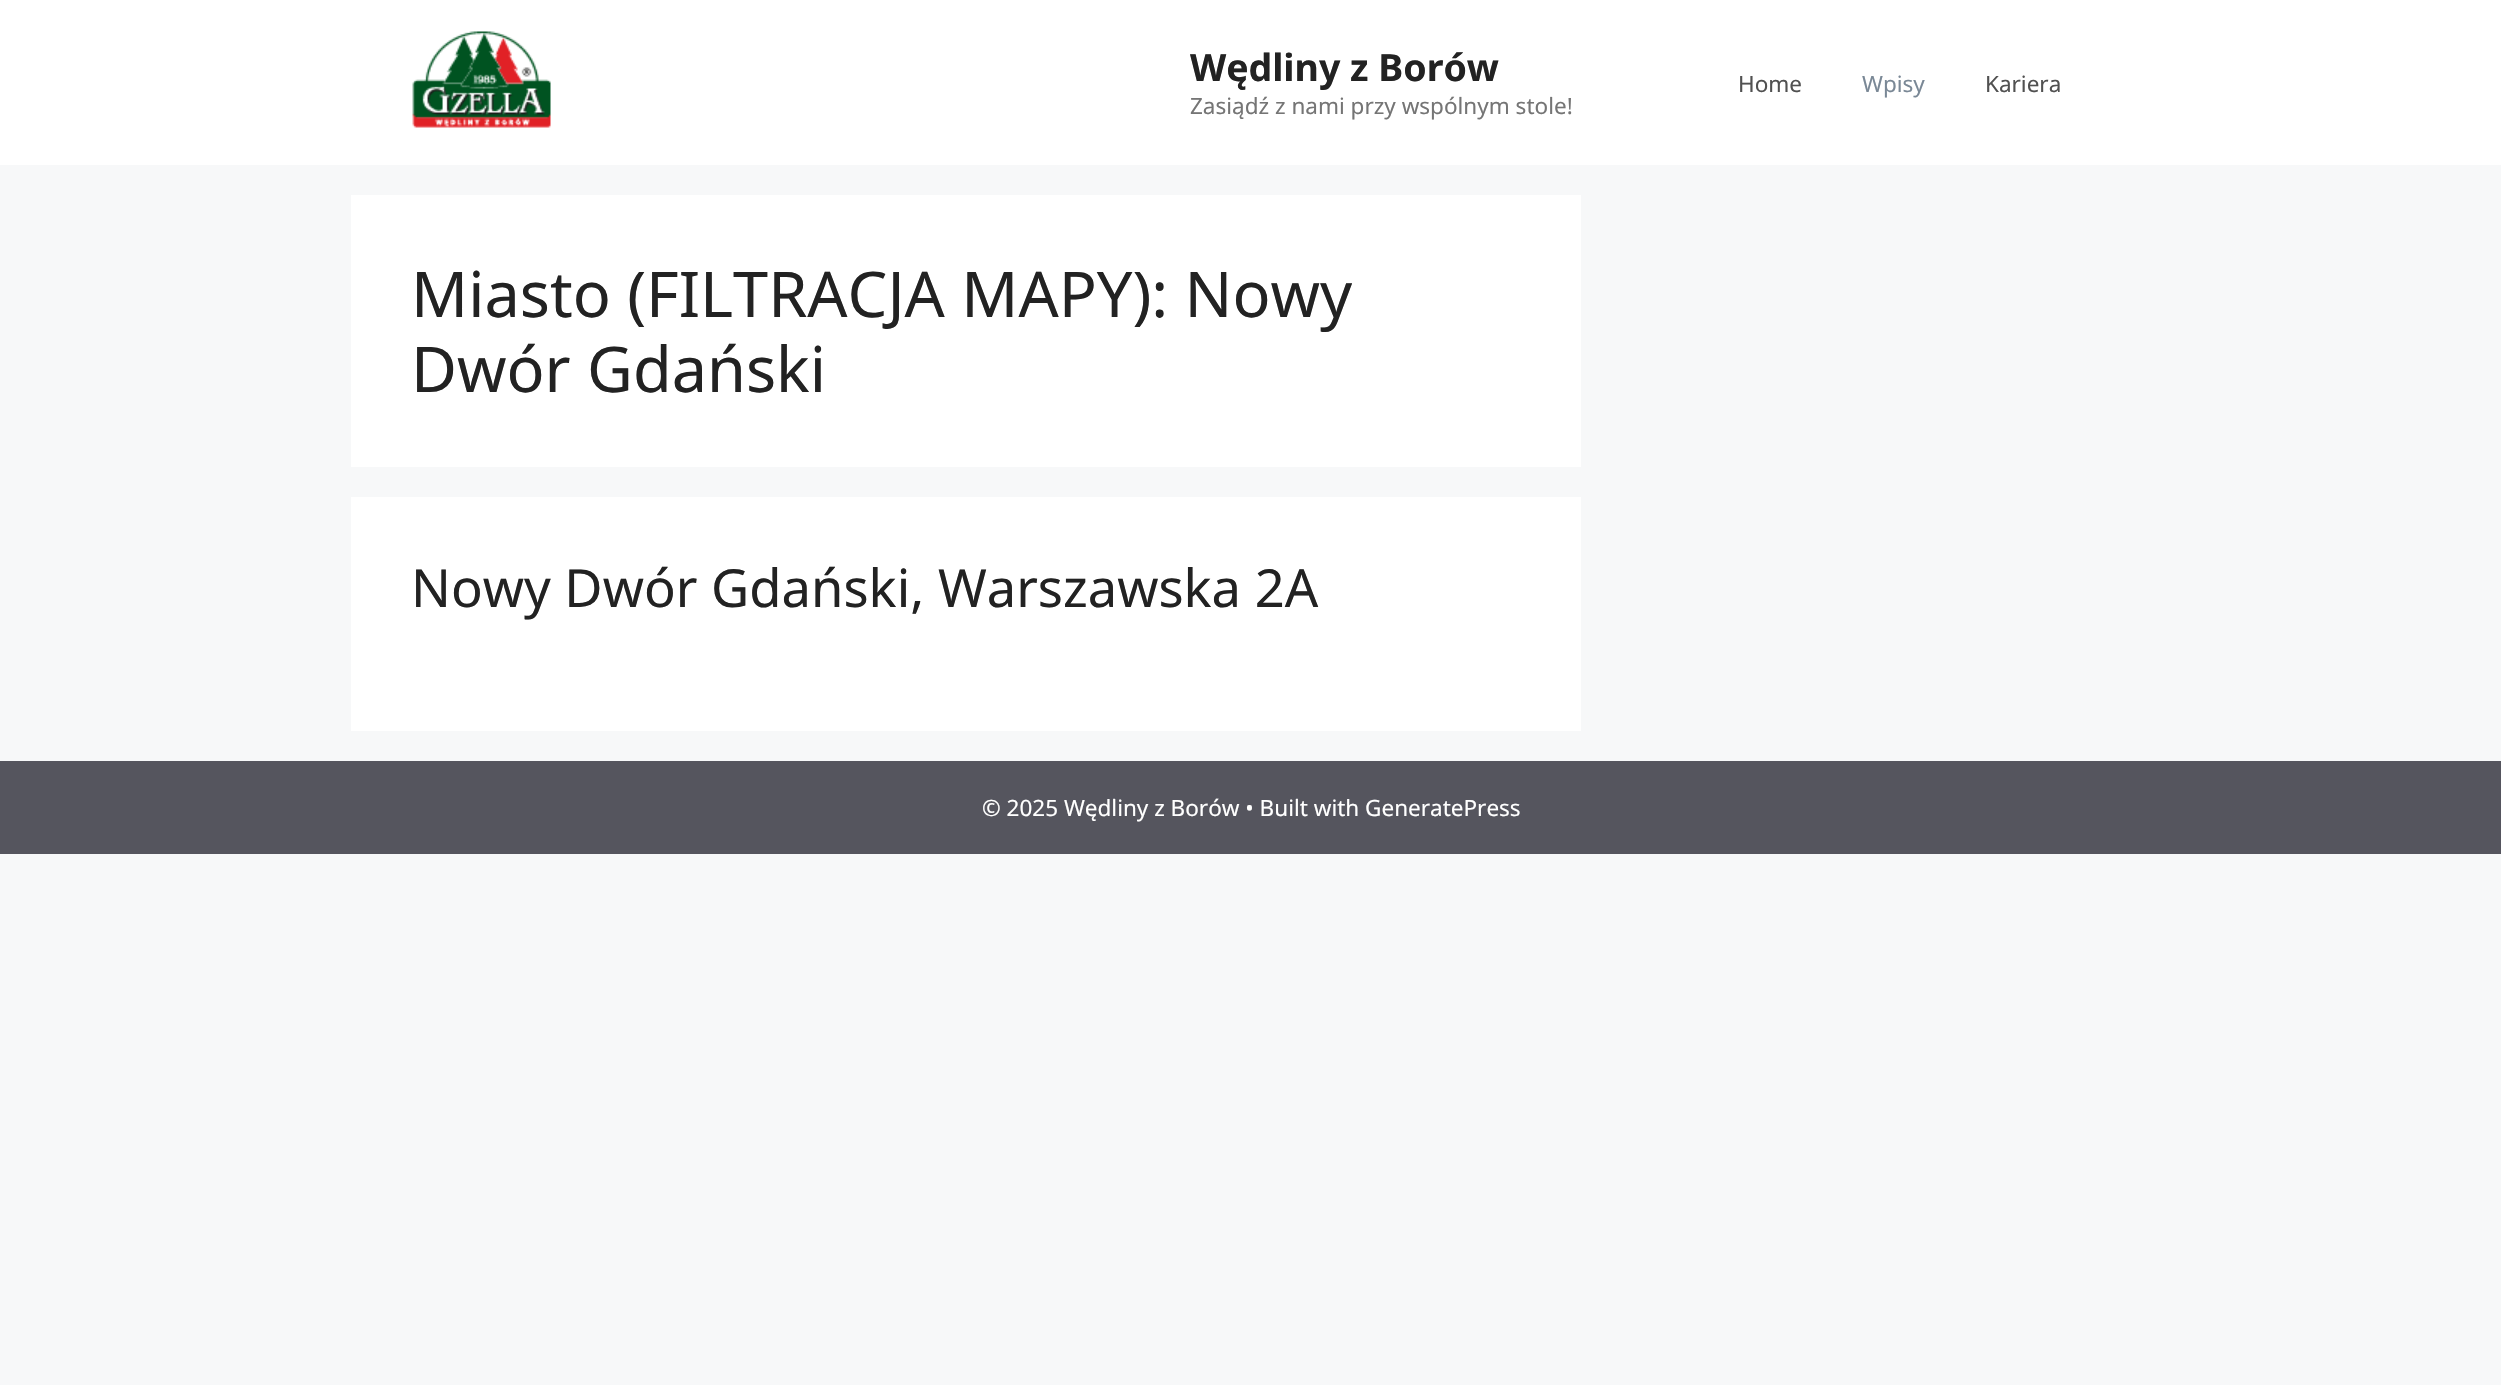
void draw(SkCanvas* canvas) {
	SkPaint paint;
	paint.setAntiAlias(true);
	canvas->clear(0xfff7f8f9);
	paint.setColor(0xffffffff);
	canvas->drawRect(SkRect::MakeXYWH(0, 0, 2501, 165), paint);
	canvas->drawImageRect(SkImages::DeferredFromEncodedData(SkData::MakeFromFileName("img1.png")), SkRect::MakeXYWH(412, 31, 139, 97), SkSamplingOptions());
	SkFont f1(fontMgr->matchFamilyStyle("Noto Sans", SkFontStyle::Bold()), 37.5);
	f1.setSubpixel(true);
	paint.setColor(0xff222222);
	canvas->drawString("Wędliny z Borów", 1190, 81, f1, paint);
	SkFont f2(fontMgr->matchFamilyStyle("Noto Sans", SkFontStyle::Normal()), 22.5);
	f2.setSubpixel(true);
	paint.setColor(0xff757575);
	canvas->drawString("Zasiądź z nami przy wspólnym stole!", 1190, 114, f2, paint);
	paint.setColor(0xff515151);
	canvas->drawString("Home", 1738, 92, f2, paint);
	paint.setColor(0xff7a8896);
	canvas->drawString("Wpisy", 1862, 92, f2, paint);
	paint.setColor(0xff515151);
	canvas->drawString("Kariera", 1985, 92, f2, paint);
	paint.setColor(0xffffffff);
	canvas->drawRect(SkRect::MakeXYWH(351, 195, 1230, 272), paint);
	SkFont f3(fontMgr->matchFamilyStyle("Noto Sans", SkFontStyle::Normal()), 63);
	f3.setSubpixel(true);
	paint.setColor(0xff222222);
	canvas->drawString("Miasto (FILTRACJA MAPY): Nowy", 411, 317, f3, paint);
	canvas->drawString("Dwór Gdański", 411, 392, f3, paint);
	paint.setColor(0xffffffff);
	canvas->drawRect(SkRect::MakeXYWH(351, 497, 1230, 234), paint);
	SkFont f4(fontMgr->matchFamilyStyle("Noto Sans", SkFontStyle::Normal()), 52.5);
	f4.setSubpixel(true);
	paint.setColor(0xff222222);
	canvas->drawString("Nowy Dwór Gdański, Warszawska 2A", 411, 607, f4, paint);
	paint.setColor(0xff55555e);
	canvas->drawRect(SkRect::MakeXYWH(0, 761, 2501, 93), paint);
	paint.setColor(0xffffffff);
	canvas->drawString("© 2025 Wędliny z Borów • Built with GeneratePress", 982, 816, f2, paint);
}
